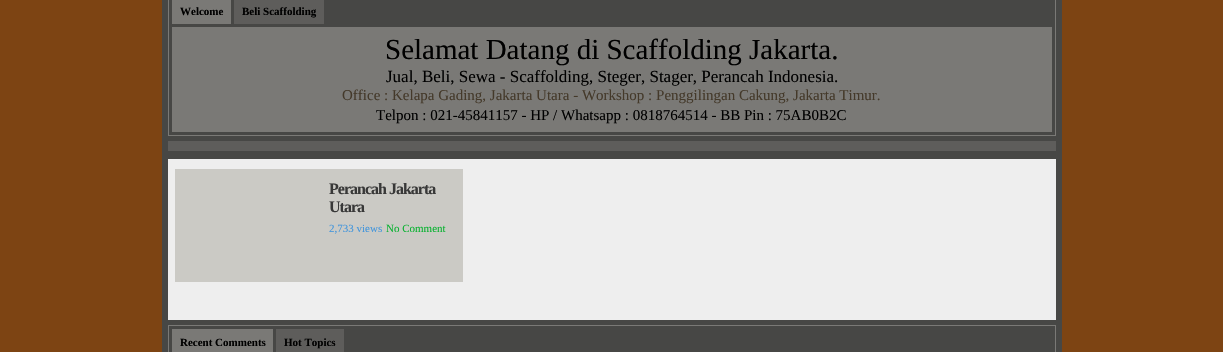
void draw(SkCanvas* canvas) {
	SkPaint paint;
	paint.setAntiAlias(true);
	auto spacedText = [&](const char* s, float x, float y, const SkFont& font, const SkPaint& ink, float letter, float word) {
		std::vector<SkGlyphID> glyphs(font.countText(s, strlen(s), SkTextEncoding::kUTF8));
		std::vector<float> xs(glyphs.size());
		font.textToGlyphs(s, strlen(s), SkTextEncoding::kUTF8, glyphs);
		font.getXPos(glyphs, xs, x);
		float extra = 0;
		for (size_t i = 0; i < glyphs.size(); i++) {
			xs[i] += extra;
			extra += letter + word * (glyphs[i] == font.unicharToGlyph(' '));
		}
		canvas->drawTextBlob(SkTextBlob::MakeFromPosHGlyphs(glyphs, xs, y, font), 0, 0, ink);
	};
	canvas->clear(0xff7d4413);
	paint.setColor(0xff474745);
	canvas->drawRect(SkRect::MakeXYWH(162, 0, 900, 352), paint);
	paint.setStroke(true);
	paint.setStrokeWidth(1);
	paint.setColor(0xff7a7976);
	canvas->drawRect(SkRect::MakeXYWH(168.5, -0.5, 887, 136), paint);
	paint.setStroke(false);
	canvas->drawRect(SkRect::MakeXYWH(172, 0, 59, 24), paint);
	SkFont f1(fontMgr->matchFamilyStyle("Liberation Serif", SkFontStyle::Bold()), 11);
	f1.setSubpixel(true);
	paint.setColor(0xff000000);
	canvas->drawString("Welcome", 180, 15, f1, paint);
	paint.setColor(0xff5e5d5b);
	canvas->drawRect(SkRect::MakeXYWH(234, 0, 90, 24), paint);
	paint.setColor(0xff000000);
	canvas->drawString("Beli Scaffolding", 242, 15, f1, paint);
	paint.setColor(0xff7a7976);
	canvas->drawRect(SkRect::MakeXYWH(172, 27, 880, 105), paint);
	SkFont f2(fontMgr->matchFamilyStyle("Liberation Serif", SkFontStyle::Normal()), 29);
	f2.setSubpixel(true);
	paint.setColor(0xff000000);
	canvas->drawString("Selamat Datang di Scaffolding Jakarta.", 385, 59, f2, paint);
	SkFont f3(fontMgr->matchFamilyStyle("Liberation Serif", SkFontStyle::Normal()), 17);
	f3.setSubpixel(true);
	canvas->drawString("Jual, Beli, Sewa - Scaffolding, Steger, Stager, Perancah Indonesia.", 386, 82, f3, paint);
	SkFont f4(fontMgr->matchFamilyStyle("Liberation Serif", SkFontStyle::Normal()), 15);
	f4.setSubpixel(true);
	paint.setColor(0xff44392a);
	canvas->drawString("Office : Kelapa Gading, Jakarta Utara - Workshop : Penggilingan Cakung, Jakarta Timur.", 342, 100, f4, paint);
	paint.setColor(0xff000000);
	canvas->drawString("Telpon : 021-45841157 - HP / Whatsapp : 0818764514 - BB Pin : 75AB0B2C", 376, 120, f4, paint);
	paint.setColor(0xff5e5d5b);
	canvas->drawRect(SkRect::MakeXYWH(168, 141, 888, 10), paint);
	paint.setColor(0xffeeeeee);
	canvas->drawRect(SkRect::MakeXYWH(168, 159, 888, 161), paint);
	paint.setColor(0xffcbcac5);
	canvas->drawRect(SkRect::MakeXYWH(175, 169, 288, 113), paint);
	SkFont f5(fontMgr->matchFamilyStyle("Liberation Serif", SkFontStyle::Bold()), 16);
	f5.setSubpixel(true);
	paint.setColor(0xff383838);
	spacedText("Perancah Jakarta", 329, 194, f5, paint, -1, 0);
	spacedText("Utara", 329, 212, f5, paint, -1, 0);
	SkFont f6(fontMgr->matchFamilyStyle("Liberation Serif", SkFontStyle::Normal()), 11);
	f6.setSubpixel(true);
	paint.setColor(0xff4295dc);
	canvas->drawString("2,733 views", 329, 232, f6, paint);
	paint.setColor(0xff08b230);
	canvas->drawString("No Comment", 386, 232, f6, paint);
	paint.setStroke(true);
	paint.setColor(0xff7a7976);
	canvas->drawRect(SkRect::MakeXYWH(168.5, 325.5, 887, 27), paint);
	paint.setStroke(false);
	canvas->drawRect(SkRect::MakeXYWH(172, 329, 101, 23), paint);
	paint.setColor(0xff000000);
	canvas->drawString("Recent Comments", 180, 346, f1, paint);
	paint.setColor(0xff5e5d5b);
	canvas->drawRect(SkRect::MakeXYWH(276, 329, 68, 23), paint);
	paint.setColor(0xff000000);
	canvas->drawString("Hot Topics", 284, 346, f1, paint);
}
